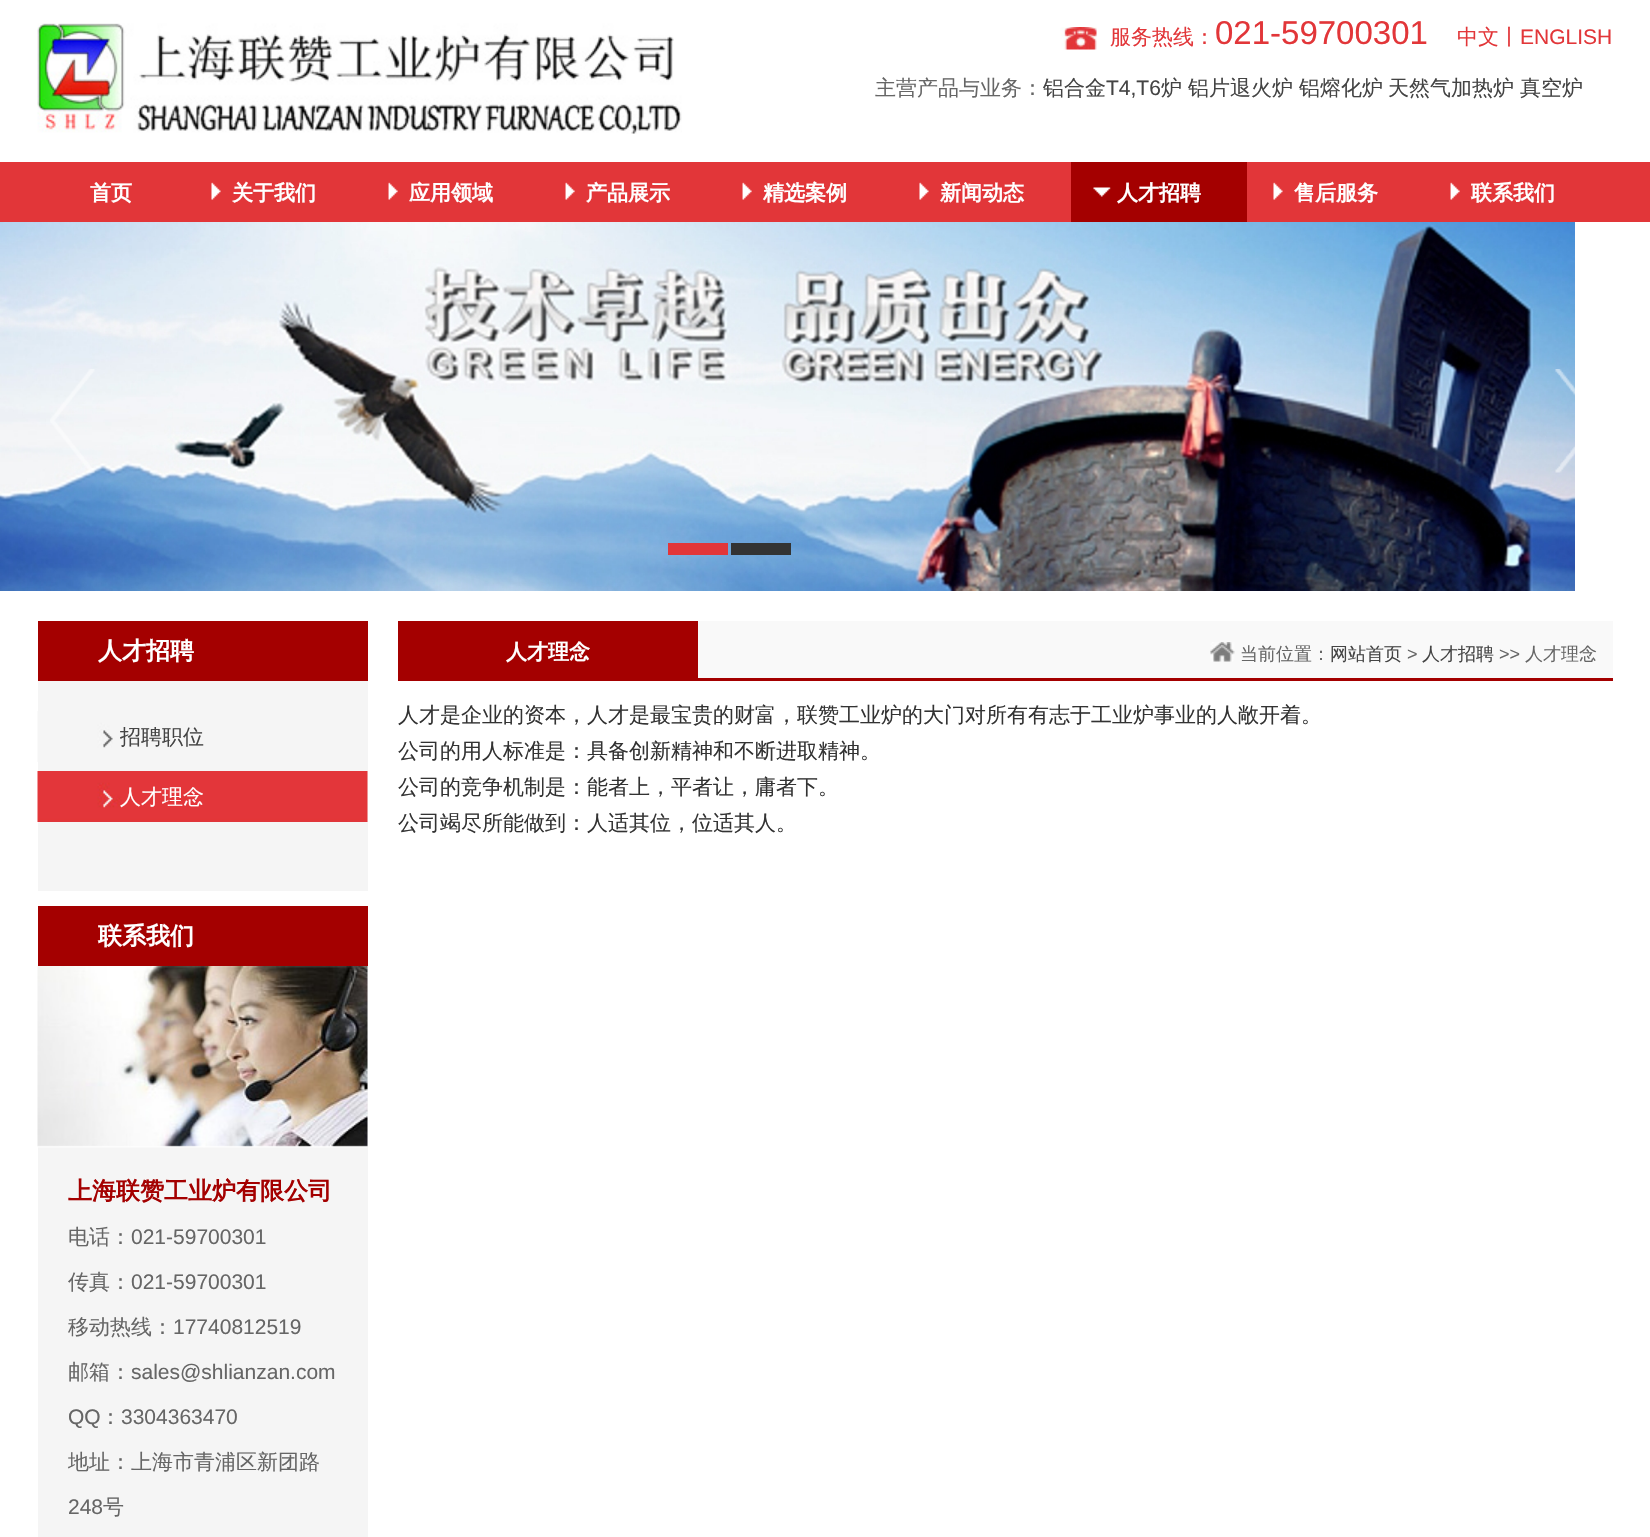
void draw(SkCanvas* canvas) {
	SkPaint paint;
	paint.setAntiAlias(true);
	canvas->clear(0xffffffff);
	canvas->drawImageRect(SkImages::DeferredFromEncodedData(SkData::MakeFromFileName("img1.png")), SkRect::MakeXYWH(37, 23, 645, 111), SkSamplingOptions());
	canvas->drawImageRect(SkImages::DeferredFromEncodedData(SkData::MakeFromFileName("img2.png")), SkRect::MakeXYWH(1060, 27, 37, 23), SkSamplingOptions());
	SkFont f1(fontMgr->matchFamilyStyle("WenQuanYi Zen Hei", SkFontStyle(500, SkFontStyle::kNormal_Width, SkFontStyle::kUpright_Slant)), 21);
	f1.setSubpixel(true);
	paint.setColor(0xffe23639);
	canvas->drawString("服务热线：", 1110, 44, f1, paint);
	SkFont f2(fontMgr->matchFamilyStyle("Liberation Sans", SkFontStyle::Normal()), 33);
	f2.setSubpixel(true);
	canvas->drawString("021-59700301", 1215, 44, f2, paint);
	canvas->drawString("中文丨", 1457, 44, f1, paint);
	SkFont f3(fontMgr->matchFamilyStyle("Liberation Sans", SkFontStyle::Normal()), 21);
	f3.setSubpixel(true);
	canvas->drawString("ENGLISH", 1520, 44, f3, paint);
	paint.setColor(0xff666666);
	canvas->drawString("主营产品与业务：", 875, 95, f1, paint);
	paint.setColor(0xff444444);
	canvas->drawString("铝合金", 1043, 95, f1, paint);
	canvas->drawString("T4,T6", 1106, 95, f3, paint);
	canvas->drawString("炉", 1161, 95, f1, paint);
	canvas->drawString("铝片退火炉", 1188, 95, f1, paint);
	canvas->drawString("铝熔化炉", 1299, 95, f1, paint);
	canvas->drawString("天然气加热炉", 1388, 95, f1, paint);
	canvas->drawString("真空炉", 1520, 95, f1, paint);
	paint.setColor(0xffe23639);
	canvas->drawRect(SkRect::MakeXYWH(0, 162, 1650, 60), paint);
	SkFont f4(fontMgr->matchFamilyStyle("WenQuanYi Zen Hei", SkFontStyle::Bold()), 21);
	f4.setSubpixel(true);
	paint.setColor(0xffffffff);
	canvas->drawString("首页", 90, 200, f4, paint);
	canvas->drawImageRect(SkImages::DeferredFromEncodedData(SkData::MakeFromFileName("img3.png")), SkRect::MakeXYWH(211, 182, 10, 18), SkSamplingOptions());
	canvas->drawString("关于我们", 232, 200, f4, paint);
	canvas->drawImageRect(SkImages::DeferredFromEncodedData(SkData::MakeFromFileName("img4.png")), SkRect::MakeXYWH(388, 182, 10, 18), SkSamplingOptions());
	canvas->drawString("应用领域", 409, 200, f4, paint);
	canvas->drawImageRect(SkImages::DeferredFromEncodedData(SkData::MakeFromFileName("img4.png")), SkRect::MakeXYWH(565, 182, 10, 18), SkSamplingOptions());
	canvas->drawString("产品展示", 586, 200, f4, paint);
	canvas->drawImageRect(SkImages::DeferredFromEncodedData(SkData::MakeFromFileName("img4.png")), SkRect::MakeXYWH(742, 182, 10, 18), SkSamplingOptions());
	canvas->drawString("精选案例", 763, 200, f4, paint);
	canvas->drawImageRect(SkImages::DeferredFromEncodedData(SkData::MakeFromFileName("img3.png")), SkRect::MakeXYWH(919, 182, 10, 18), SkSamplingOptions());
	canvas->drawString("新闻动态", 940, 200, f4, paint);
	paint.setColor(0xffa40000);
	canvas->drawRect(SkRect::MakeXYWH(1071, 162, 176, 60), paint);
	canvas->drawImageRect(SkImages::DeferredFromEncodedData(SkData::MakeFromFileName("img5.png")), SkRect::MakeXYWH(1093, 187, 18, 10), SkSamplingOptions());
	paint.setColor(0xffffffff);
	canvas->drawString("人才招聘", 1117, 200, f4, paint);
	canvas->drawImageRect(SkImages::DeferredFromEncodedData(SkData::MakeFromFileName("img3.png")), SkRect::MakeXYWH(1273, 182, 10, 18), SkSamplingOptions());
	canvas->drawString("售后服务", 1294, 200, f4, paint);
	canvas->drawImageRect(SkImages::DeferredFromEncodedData(SkData::MakeFromFileName("img4.png")), SkRect::MakeXYWH(1450, 182, 10, 18), SkSamplingOptions());
	canvas->drawString("联系我们", 1471, 200, f4, paint);
	canvas->drawImageRect(SkImages::DeferredFromEncodedData(SkData::MakeFromFileName("img6.png")), SkRect::MakeXYWH(0, 222, 1575, 369), SkSamplingOptions());
	canvas->drawImageRect(SkImages::DeferredFromEncodedData(SkData::MakeFromFileName("img7.png")), SkRect::MakeXYWH(50, 369, 45, 104), SkSamplingOptions());
	canvas->drawImageRect(SkImages::DeferredFromEncodedData(SkData::MakeFromFileName("img8.png")), SkRect::MakeXYWH(1555, 369, 20, 104), SkSamplingOptions());
	paint.setColor(0xffe23639);
	canvas->drawRect(SkRect::MakeXYWH(668, 543, 60, 12), paint);
	paint.setColor(0xff333333);
	canvas->drawRect(SkRect::MakeXYWH(731, 543, 60, 12), paint);
	paint.setColor(0xfff5f5f5);
	canvas->drawRect(SkRect::MakeXYWH(38, 681, 330, 210), paint);
	paint.setColor(0xffa40000);
	canvas->drawRect(SkRect::MakeXYWH(38, 621, 330, 60), paint);
	SkFont f5(fontMgr->matchFamilyStyle("WenQuanYi Zen Hei", SkFontStyle::Bold()), 24);
	f5.setSubpixel(true);
	paint.setColor(0xffffffff);
	canvas->drawString("人才招聘", 98, 659, f5, paint);
	canvas->drawImageRect(SkImages::DeferredFromEncodedData(SkData::MakeFromFileName("img9.png")), SkRect::MakeXYWH(37, 711, 76, 51), SkSamplingOptions());
	paint.setColor(0xff444444);
	canvas->drawString("招聘职位", 120, 744, f1, paint);
	canvas->drawImageRect(SkImages::DeferredFromEncodedData(SkData::MakeFromFileName("img10.png")), SkRect::MakeXYWH(37, 771, 331, 51), SkSamplingOptions());
	paint.setColor(0xffffffff);
	canvas->drawString("人才理念", 120, 804, f1, paint);
	paint.setColor(0xfff5f5f5);
	canvas->drawRect(SkRect::MakeXYWH(38, 966, 330, 571), paint);
	paint.setColor(0xffa40000);
	canvas->drawRect(SkRect::MakeXYWH(38, 906, 330, 60), paint);
	paint.setColor(0xffffffff);
	canvas->drawString("联系我们", 98, 944, f5, paint);
	canvas->drawImageRect(SkImages::DeferredFromEncodedData(SkData::MakeFromFileName("img11.png")), SkRect::MakeXYWH(37, 966, 331, 182), SkSamplingOptions());
	paint.setColor(0xffa40000);
	canvas->drawString("上海联赞工业炉有限公司", 68, 1199, f5, paint);
	paint.setColor(0xff666666);
	canvas->drawString("电话：", 68, 1244, f1, paint);
	canvas->drawString("021-59700301", 131, 1244, f3, paint);
	canvas->drawString("传真：", 68, 1289, f1, paint);
	canvas->drawString("021-59700301", 131, 1289, f3, paint);
	canvas->drawString("移动热线：", 68, 1334, f1, paint);
	canvas->drawString("17740812519", 173, 1334, f3, paint);
	canvas->drawString("邮箱：", 68, 1379, f1, paint);
	canvas->drawString("sales@shlianzan.com", 131, 1379, f3, paint);
	canvas->drawString("QQ", 68, 1424, f3, paint);
	canvas->drawString("：", 100, 1424, f1, paint);
	canvas->drawString("3304363470", 121, 1424, f3, paint);
	canvas->drawString("地址：上海市青浦区新团路", 68, 1469, f1, paint);
	canvas->drawString("248", 68, 1514, f3, paint);
	canvas->drawString("号", 103, 1514, f1, paint);
	paint.setColor(0xfff9f9f9);
	canvas->drawRect(SkRect::MakeXYWH(698, 621, 915, 57), paint);
	paint.setColor(0xffa40000);
	canvas->drawRect(SkRect::MakeXYWH(398, 678, 1215, 3), paint);
	canvas->drawRect(SkRect::MakeXYWH(398, 621, 300, 57), paint);
	paint.setColor(0xffffffff);
	canvas->drawString("人才理念", 506, 659, f4, paint);
	canvas->drawImageRect(SkImages::DeferredFromEncodedData(SkData::MakeFromFileName("img12.png")), SkRect::MakeXYWH(1210, 642, 25, 20), SkSamplingOptions());
	SkFont f6(fontMgr->matchFamilyStyle("WenQuanYi Zen Hei", SkFontStyle(500, SkFontStyle::kNormal_Width, SkFontStyle::kUpright_Slant)), 18);
	f6.setSubpixel(true);
	paint.setColor(0xff666666);
	canvas->drawString("当前位置：", 1240, 660, f6, paint);
	paint.setColor(0xff444444);
	canvas->drawString("网站首页", 1330, 660, f6, paint);
	SkFont f7(fontMgr->matchFamilyStyle("Liberation Sans", SkFontStyle::Normal()), 18);
	f7.setSubpixel(true);
	paint.setColor(0xff666666);
	canvas->drawString(">", 1407, 660, f7, paint);
	paint.setColor(0xff444444);
	canvas->drawString("人才招聘", 1422, 660, f6, paint);
	paint.setColor(0xff666666);
	canvas->drawString(">>", 1499, 660, f7, paint);
	canvas->drawString("人才理念", 1525, 660, f6, paint);
	paint.setColor(0xff333333);
	canvas->drawString("人才是企业的资本，人才是最宝贵的财富，联赞工业炉的大门对所有有志于工业炉事业的人敞开着。", 398, 722, f1, paint);
	canvas->drawString("公司的用人标准是：具备创新精神和不断进取精神。", 398, 758, f1, paint);
	canvas->drawString("公司的竞争机制是：能者上，平者让，庸者下。", 398, 794, f1, paint);
	canvas->drawString("公司竭尽所能做到：人适其位，位适其人。", 398, 830, f1, paint);
}
